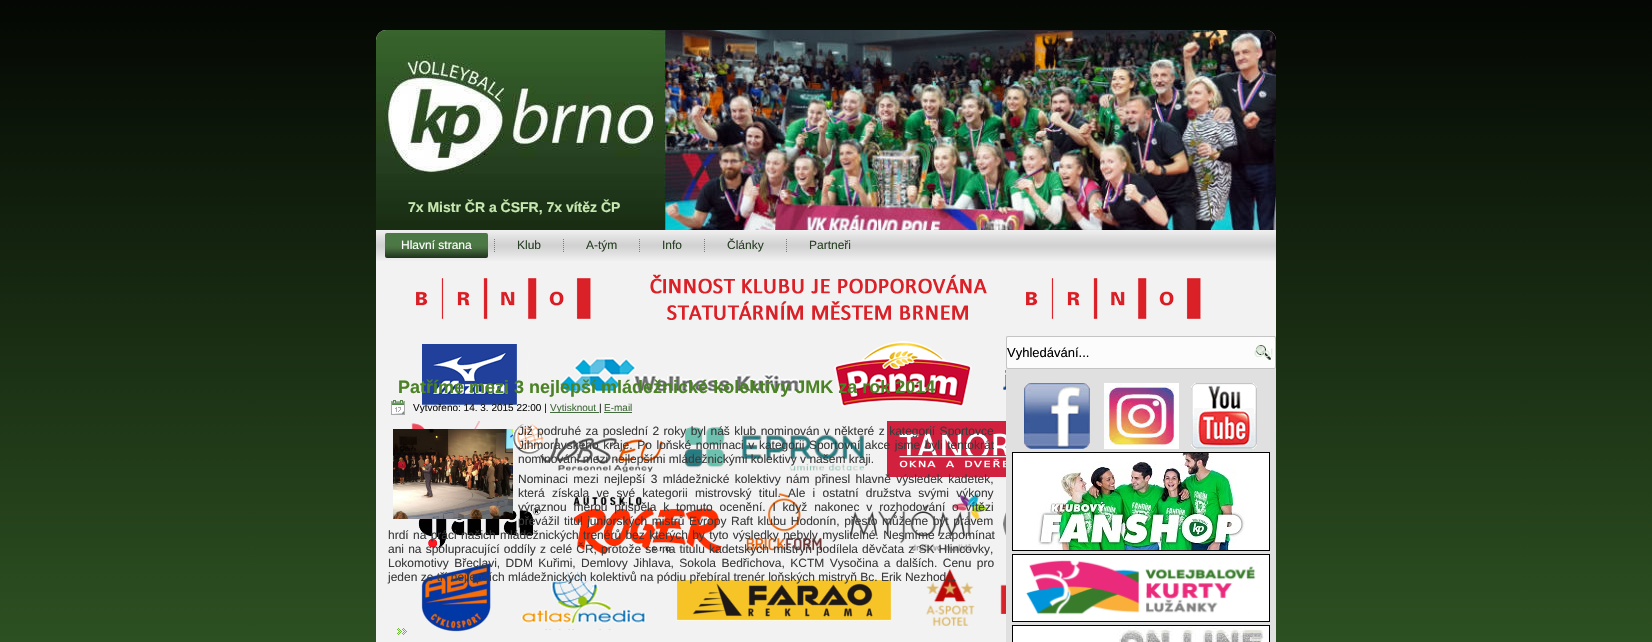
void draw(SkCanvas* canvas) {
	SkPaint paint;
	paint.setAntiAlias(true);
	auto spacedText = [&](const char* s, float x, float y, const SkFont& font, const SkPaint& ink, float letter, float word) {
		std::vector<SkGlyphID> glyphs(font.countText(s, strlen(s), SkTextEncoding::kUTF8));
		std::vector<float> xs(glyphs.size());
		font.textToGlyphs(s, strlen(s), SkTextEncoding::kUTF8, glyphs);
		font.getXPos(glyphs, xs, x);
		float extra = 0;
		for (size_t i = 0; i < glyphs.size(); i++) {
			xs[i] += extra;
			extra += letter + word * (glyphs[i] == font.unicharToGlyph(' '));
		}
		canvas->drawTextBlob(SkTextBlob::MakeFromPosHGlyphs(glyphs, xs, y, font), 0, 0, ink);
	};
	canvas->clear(0xffffffff);
	canvas->drawImageRect(SkImages::DeferredFromEncodedData(SkData::MakeFromFileName("img1.png")), SkRect::MakeXYWH(0, 0, 1652, 642), SkSamplingOptions());
	paint.setColor(0xfff2f2f2);
	canvas->drawRoundRect(SkRect::MakeXYWH(376, 30, 900, 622), 10, 10, paint);
	canvas->drawImageRect(SkImages::DeferredFromEncodedData(SkData::MakeFromFileName("img2.png")), SkRect::MakeXYWH(376, 30, 900, 200), SkSamplingOptions());
	SkFont f1(fontMgr->matchFamilyStyle("Liberation Sans", SkFontStyle::Bold()), 14);
	f1.setSubpixel(true);
	paint.setColor(0xffc7e8b0);
	canvas->drawString("7x Mistr ČR a ČSFR, 7x vítěz ČP", 408, 212, f1, paint);
	{
		const SkColor colors[] = {0xfff0f0f0, 0xffd6d6d6, 0xffd1d1d1, 0xffd6d6d6, 0xfff0f0f0};
		const float stops[] = {0, 0.4, 0.5, 0.6, 1};
		const SkPoint ends[] = {{826, 230}, {826, 261}};
		paint.setShader(SkGradientShader::MakeLinear(ends, colors, stops, 5, SkTileMode::kClamp));
		paint.setAlpha(255);
	}
	canvas->drawRect(SkRect::MakeXYWH(376, 230, 900, 31), paint);
	{
		const SkColor colors[] = {0xff4c7845, 0xff4c7845, 0xff487141, 0xff1f311c};
		const float stops[] = {0, 0.5, 0.6, 1};
		const SkPoint ends[] = {{437, 233}, {437, 258}};
		paint.setShader(SkGradientShader::MakeLinear(ends, colors, stops, 4, SkTileMode::kClamp));
		paint.setAlpha(255);
	}
	canvas->drawRoundRect(SkRect::MakeXYWH(385, 233, 103, 25), 2, 2, paint);
	SkFont f2(fontMgr->matchFamilyStyle("Liberation Sans", SkFontStyle::Normal()), 12);
	f2.setSubpixel(true);
	paint.setShader(nullptr);
	paint.setColor(0xffffffff);
	canvas->drawString("Hlavní strana", 401, 249, f2, paint);
	canvas->drawImageRect(SkImages::DeferredFromEncodedData(SkData::MakeFromFileName("img3.png")), SkRect::MakeXYWH(494, 239, 1, 13), SkSamplingOptions());
	paint.setColor(0xff294125);
	canvas->drawString("Klub", 517, 249, f2, paint);
	canvas->drawImageRect(SkImages::DeferredFromEncodedData(SkData::MakeFromFileName("img3.png")), SkRect::MakeXYWH(563, 239, 1, 13), SkSamplingOptions());
	canvas->drawString("A-tým", 586, 249, f2, paint);
	canvas->drawImageRect(SkImages::DeferredFromEncodedData(SkData::MakeFromFileName("img3.png")), SkRect::MakeXYWH(639, 239, 1, 13), SkSamplingOptions());
	canvas->drawString("Info", 662, 249, f2, paint);
	canvas->drawImageRect(SkImages::DeferredFromEncodedData(SkData::MakeFromFileName("img3.png")), SkRect::MakeXYWH(704, 239, 1, 13), SkSamplingOptions());
	canvas->drawString("Články", 727, 249, f2, paint);
	canvas->drawImageRect(SkImages::DeferredFromEncodedData(SkData::MakeFromFileName("img3.png")), SkRect::MakeXYWH(786, 239, 1, 13), SkSamplingOptions());
	canvas->drawString("Partneři", 809, 249, f2, paint);
	canvas->drawImageRect(SkImages::DeferredFromEncodedData(SkData::MakeFromFileName("img4.png")), SkRect::MakeXYWH(416, 274, 785, 46), SkSamplingOptions());
	canvas->drawImageRect(SkImages::DeferredFromEncodedData(SkData::MakeFromFileName("img5.png")), SkRect::MakeXYWH(422, 341, 584, 66), SkSamplingOptions());
	canvas->drawImageRect(SkImages::DeferredFromEncodedData(SkData::MakeFromFileName("img6.png")), SkRect::MakeXYWH(397, 421, 609, 56), SkSamplingOptions());
	canvas->drawImageRect(SkImages::DeferredFromEncodedData(SkData::MakeFromFileName("img7.png")), SkRect::MakeXYWH(418, 492, 588, 63), SkSamplingOptions());
	canvas->drawImageRect(SkImages::DeferredFromEncodedData(SkData::MakeFromFileName("img8.png")), SkRect::MakeXYWH(421, 563, 585, 69), SkSamplingOptions());
	paint.setColor(0xffe0e0e0);
	canvas->drawRect(SkRect::MakeXYWH(1006, 336, 270, 306), paint);
	paint.setColor(0xfffcfcfc);
	canvas->drawRoundRect(SkRect::MakeXYWH(1006.5, 336.5, 269, 32), 1.5, 1.5, paint);
	paint.setStroke(true);
	paint.setStrokeWidth(1);
	paint.setColor(0xffc4c4c4);
	canvas->drawRoundRect(SkRect::MakeXYWH(1006.5, 336.5, 269, 32), 1.5, 1.5, paint);
	SkFont f3(fontMgr->matchFamilyStyle("Liberation Sans", SkFontStyle::Normal()), 13);
	f3.setSubpixel(true);
	paint.setStroke(false);
	paint.setColor(0xff000000);
	canvas->drawString("Vyhledávání...", 1007, 357, f3, paint);
	canvas->drawImageRect(SkImages::DeferredFromEncodedData(SkData::MakeFromFileName("img9.png")), SkRect::MakeXYWH(1256, 345, 15, 15), SkSamplingOptions());
	paint.setColor(0xffddebdb);
	canvas->drawString("Go!", 1254, 357, f2, paint);
	canvas->drawImageRect(SkImages::DeferredFromEncodedData(SkData::MakeFromFileName("img10.png")), SkRect::MakeXYWH(1024, 383, 66, 66), SkSamplingOptions());
	canvas->drawImageRect(SkImages::DeferredFromEncodedData(SkData::MakeFromFileName("img11.png")), SkRect::MakeXYWH(1104, 383, 75, 66), SkSamplingOptions());
	canvas->drawImageRect(SkImages::DeferredFromEncodedData(SkData::MakeFromFileName("img12.png")), SkRect::MakeXYWH(1191, 383, 66, 66), SkSamplingOptions());
	paint.setStroke(true);
	paint.setColor(0xff000000);
	canvas->drawRect(SkRect::MakeXYWH(1012.5, 452.5, 257, 98), paint);
	canvas->drawImageRect(SkImages::DeferredFromEncodedData(SkData::MakeFromFileName("img13.png")), SkRect::MakeXYWH(1013, 453, 256, 97), SkSamplingOptions());
	canvas->drawRect(SkRect::MakeXYWH(1012.5, 554.5, 257, 67), paint);
	canvas->drawImageRect(SkImages::DeferredFromEncodedData(SkData::MakeFromFileName("img14.png")), SkRect::MakeXYWH(1013, 555, 256, 66), SkSamplingOptions());
	canvas->drawRect(SkRect::MakeXYWH(1012.5, 625.5, 257, 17), paint);
	canvas->drawImageRect(SkImages::DeferredFromEncodedData(SkData::MakeFromFileName("img15.png")), SkRect::MakeXYWH(1013, 626, 256, 16), SkSamplingOptions());
	SkFont f4(fontMgr->matchFamilyStyle("Liberation Sans", SkFontStyle::Bold()), 18);
	f4.setSubpixel(true);
	paint.setStroke(false);
	paint.setColor(0xff4c8226);
	canvas->drawString("Patříme mezi 3 nejlepší mládežnické kolektivy JMK za rok 2014", 398, 393, f4, paint);
	canvas->drawImageRect(SkImages::DeferredFromEncodedData(SkData::MakeFromFileName("img16.png")), SkRect::MakeXYWH(391, 400, 14, 15), SkSamplingOptions());
	SkFont f5(fontMgr->matchFamilyStyle("Liberation Sans", SkFontStyle::Normal()), 10);
	f5.setSubpixel(true);
	paint.setColor(0xff121212);
	canvas->drawString("Vytvořeno: 14. 3. 2015 22:00 |", 413, 411, f5, paint);
	paint.setColor(0xff436b3d);
	canvas->drawRect(SkRect::MakeXYWH(550, 412, 49, 1), paint);
	canvas->drawString("Vytisknout", 550, 411, f5, paint);
	paint.setColor(0xff121212);
	canvas->drawString("|", 599, 411, f5, paint);
	paint.setColor(0xff436b3d);
	canvas->drawString("E-mail", 604, 411, f5, paint);
	canvas->drawRect(SkRect::MakeXYWH(604, 412, 28, 1), paint);
	canvas->drawImageRect(SkImages::DeferredFromEncodedData(SkData::MakeFromFileName("img17.png")), SkRect::MakeXYWH(393, 429, 120, 90), SkSamplingOptions());
	paint.setColor(0xff3b3b3b);
	spacedText("Již podruhé za poslední 2 roky byl náš klub nominován v některé z kategorií Sportovce", 518, 435, f2, paint, 0, 1.1);
	spacedText("Jihmoravského kraje. Po loňské nominaci v kategorii Sportovní akce jsme byli tentokrát", 518, 449, f2, paint, 0, 1.25);
	canvas->drawString("nominováni mezi nejlepšími mládežnickými kolektivy v našem kraji.", 518, 463, f2, paint);
	spacedText("Nominaci mezi nejlepší 3 mládežnické kolektivy nám přinesl hlavně výsledek kadetek,", 518, 483, f2, paint, 0, 2);
	spacedText("která získala ve své kategorii mistrovský titul. Ale i ostatní družstva svými výkony", 518, 497, f2, paint, 0, 3.9);
	spacedText("výraznou měrou přispěla k tomuto ocenění. I když nakonec v rozhodování o vítězi", 518, 511, f2, paint, 0, 3.5);
	spacedText("převážil titul juniorských mistrů Evropy Raft klubu Hodonín, přesto můžeme být právem", 518, 525, f2, paint, 0, 1.25);
	spacedText("hrdí na práci našich mládežnických trenérů bez kterých by tyto výsledky nebyly myslitelné. Nesmíme zapomínat", 388, 539, f2, paint, 0, 1);
	spacedText("ani na spolupracující oddíly z celé ČR, protože se na titulu kadetských mistryň podílela děvčata z SK Hlincovky,", 388, 553, f2, paint, 0, 0.8);
	spacedText("Lokomotivy Břeclavi, DDM Kuřimi, Demlovy Jihlava, Sokola Bedřichova, KCTM Vysočina a dalších. Cenu pro", 388, 567, f2, paint, 0, 2.1);
	canvas->drawString("jeden ze tří nejlepších mládežnických kolektivů na pódiu přebíral trenér loňských mistryň Bc. Erik Nezhoda.", 388, 581, f2, paint);
	canvas->drawImageRect(SkImages::DeferredFromEncodedData(SkData::MakeFromFileName("img18.png")), SkRect::MakeXYWH(397, 628, 10, 7), SkSamplingOptions());
}
